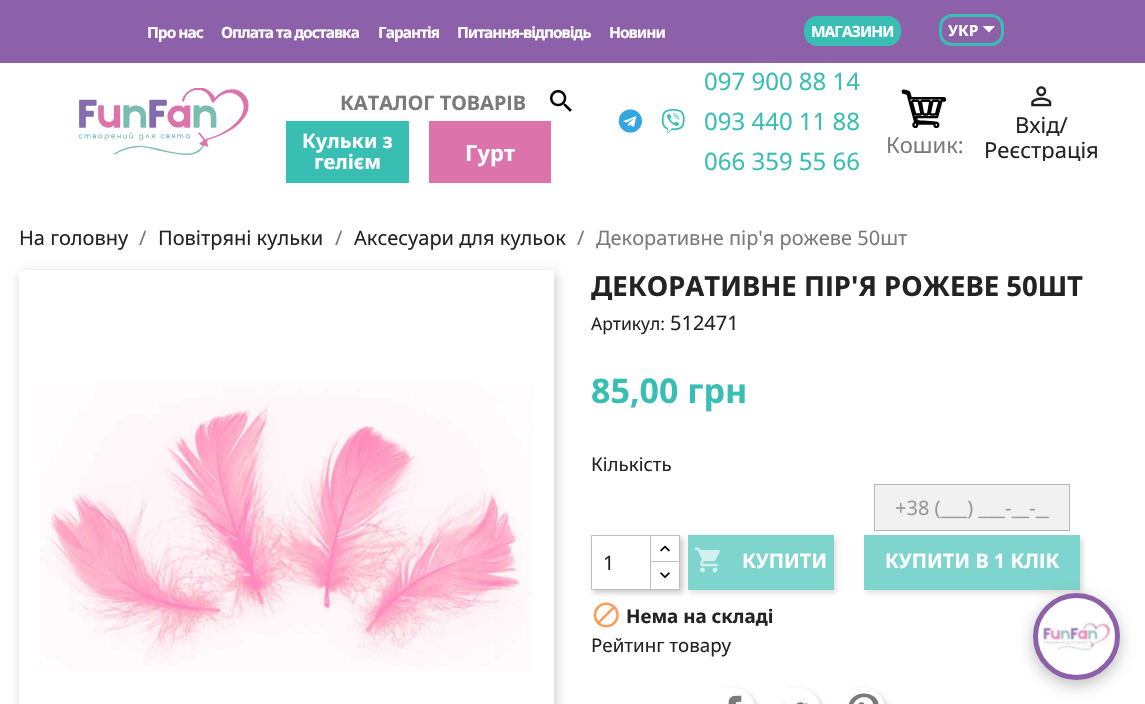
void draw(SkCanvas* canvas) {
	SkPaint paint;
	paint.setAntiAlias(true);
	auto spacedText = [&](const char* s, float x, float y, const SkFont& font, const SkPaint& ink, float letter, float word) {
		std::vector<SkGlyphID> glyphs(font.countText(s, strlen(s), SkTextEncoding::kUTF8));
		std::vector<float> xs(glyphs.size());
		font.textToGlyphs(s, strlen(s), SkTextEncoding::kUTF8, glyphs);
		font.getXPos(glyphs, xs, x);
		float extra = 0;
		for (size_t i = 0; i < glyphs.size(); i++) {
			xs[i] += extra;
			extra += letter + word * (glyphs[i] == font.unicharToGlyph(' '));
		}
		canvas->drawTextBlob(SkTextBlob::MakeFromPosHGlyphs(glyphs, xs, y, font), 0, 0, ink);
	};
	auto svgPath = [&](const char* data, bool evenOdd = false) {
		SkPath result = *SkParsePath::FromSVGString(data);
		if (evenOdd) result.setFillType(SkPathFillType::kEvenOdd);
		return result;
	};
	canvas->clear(0xffffffff);
	paint.setColor(0xff8d61a9);
	canvas->drawRect(SkRect::MakeXYWH(0, 0, 1145, 63), paint);
	SkFont f1(fontMgr->matchFamilyStyle("Noto Sans", SkFontStyle::Bold()), 15.5);
	f1.setSubpixel(true);
	paint.setColor(0xffffffff);
	spacedText("Про нас", 147, 38, f1, paint, -1, 0);
	spacedText("Оплата та доставка", 221, 38, f1, paint, -1, 0);
	spacedText("Гарантія", 378, 38, f1, paint, -1, 0);
	spacedText("Питання-відповідь", 457, 38, f1, paint, -1, 0);
	spacedText("Новини", 609, 38, f1, paint, -1, 0);
	paint.setColor(0xff39beb4);
	canvas->drawRoundRect(SkRect::MakeXYWH(804.5, 16.5, 96, 29), 12.5, 12.5, paint);
	paint.setStroke(true);
	paint.setStrokeWidth(1);
	canvas->drawRoundRect(SkRect::MakeXYWH(804.5, 16.5, 96, 29), 12.5, 12.5, paint);
	paint.setStroke(false);
	paint.setColor(0xffffffff);
	spacedText("МАГАЗИНИ", 811, 37, f1, paint, -1, 0);
	paint.setStroke(true);
	paint.setStrokeWidth(3);
	paint.setColor(0xff39beb4);
	canvas->drawRoundRect(SkRect::MakeXYWH(940.5, 15.5, 62, 29), 11.5, 11.5, paint);
	paint.setStroke(false);
	paint.setColor(0xffffffff);
	canvas->drawString("УКР", 948, 36, f1, paint);
	canvas->drawPath(svgPath("M982.5 26H995L989 32.5Z"), paint);
	canvas->drawImageRect(SkImages::DeferredFromEncodedData(SkData::MakeFromFileName("img1.png")), SkRect::MakeXYWH(79, 88, 170, 67), SkSamplingOptions());
	SkFont f2(fontMgr->matchFamilyStyle("Noto Sans", SkFontStyle::Bold()), 20);
	f2.setSubpixel(true);
	paint.setColor(0xff7a7a7a);
	canvas->drawString("КАТАЛОГ ТОВАРІВ", 340, 110, f2, paint);
	SkFont f3(fontMgr->matchFamilyStyle("Noto Sans", SkFontStyle::Normal()), 24);
	f3.setSubpixel(true);
	paint.setColor(0xff39beb4);
	canvas->drawString("097 900 88 14", 704, 90, f3, paint);
	canvas->drawImageRect(SkImages::DeferredFromEncodedData(SkData::MakeFromFileName("img2.png")), SkRect::MakeXYWH(618, 109, 24, 24), SkSamplingOptions());
	canvas->drawImageRect(SkImages::DeferredFromEncodedData(SkData::MakeFromFileName("img3.png")), SkRect::MakeXYWH(661, 109, 24, 24), SkSamplingOptions());
	canvas->drawString("093 440 11 88", 704, 130, f3, paint);
	canvas->drawString("066 359 55 66", 704, 170, f3, paint);
	canvas->drawImageRect(SkImages::DeferredFromEncodedData(SkData::MakeFromFileName("img4.png")), SkRect::MakeXYWH(550, 90, 22, 22), SkSamplingOptions());
	canvas->drawRect(SkRect::MakeXYWH(286, 121, 123, 62), paint);
	paint.setColor(0xffffffff);
	canvas->drawString("Кульки з", 302, 148, f2, paint);
	canvas->drawString("гелієм", 314, 169, f2, paint);
	paint.setColor(0xffdc74ab);
	canvas->drawRect(SkRect::MakeXYWH(429, 121, 122, 62), paint);
	SkFont f4(fontMgr->matchFamilyStyle("Noto Sans", SkFontStyle::Bold()), 22);
	f4.setSubpixel(true);
	paint.setColor(0xffffffff);
	canvas->drawString("Гурт", 465, 161, f4, paint);
	canvas->drawImageRect(SkImages::DeferredFromEncodedData(SkData::MakeFromFileName("img5.png")), SkRect::MakeXYWH(901, 89, 45, 39), SkSamplingOptions());
	SkFont f5(fontMgr->matchFamilyStyle("Noto Sans", SkFontStyle::Normal()), 22);
	f5.setSubpixel(true);
	paint.setColor(0xff7a7a7a);
	canvas->drawString("Кошик:", 886, 153, f5, paint);
	canvas->drawImageRect(SkImages::DeferredFromEncodedData(SkData::MakeFromFileName("img6.png")), SkRect::MakeXYWH(1031, 86, 21, 21), SkSamplingOptions());
	paint.setColor(0xff232323);
	canvas->drawString("Вхід/", 1015, 133, f5, paint);
	canvas->save();
	canvas->clipRect(SkRect::MakeXYWH(976, 81, 130, 80));
	canvas->drawString("Реєстрація", 984, 158, f5, paint);
	canvas->restore();
	SkFont f6(fontMgr->matchFamilyStyle("Noto Sans", SkFontStyle::Normal()), 20);
	f6.setSubpixel(true);
	canvas->drawString("На головну", 19, 245, f6, paint);
	paint.setColor(0xff7a7a7a);
	canvas->drawString("/", 139, 245, f6, paint);
	paint.setColor(0xff232323);
	canvas->drawString("Повітряні кульки", 158, 245, f6, paint);
	paint.setColor(0xff7a7a7a);
	canvas->drawString("/", 335, 245, f6, paint);
	paint.setColor(0xff232323);
	canvas->drawString("Аксесуари для кульок", 354, 245, f6, paint);
	paint.setColor(0xff7a7a7a);
	canvas->drawString("/", 577, 245, f6, paint);
	canvas->drawString("Декоративне пір'я рожеве 50шт", 596, 245, f6, paint);
	paint.setColor(0x33000000);
	paint.setMaskFilter(SkMaskFilter::MakeBlur(kNormal_SkBlurStyle, 5));
	canvas->drawRect(SkRect::MakeXYWH(21, 273, 535, 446), paint);
	paint.setMaskFilter(nullptr);
	paint.setColor(0xffffffff);
	canvas->drawRect(SkRect::MakeXYWH(19, 270, 535, 434), paint);
	canvas->drawImageRect(SkImages::DeferredFromEncodedData(SkData::MakeFromFileName("img7.png")), SkRect::MakeXYWH(40, 382, 493, 290), SkSamplingOptions());
	SkFont f7(fontMgr->matchFamilyStyle("Noto Sans", SkFontStyle::Bold()), 27.5);
	f7.setSubpixel(true);
	paint.setColor(0xff232323);
	canvas->drawString("ДЕКОРАТИВНЕ ПІР'Я РОЖЕВЕ 50ШТ", 591, 296, f7, paint);
	SkFont f8(fontMgr->matchFamilyStyle("Noto Sans", SkFontStyle::Normal()), 17.5);
	f8.setSubpixel(true);
	canvas->drawString("Артикул:", 591, 330, f8, paint);
	canvas->drawString("512471", 670, 330, f6, paint);
	SkFont f9(fontMgr->matchFamilyStyle("Noto Sans", SkFontStyle::Bold()), 34);
	f9.setSubpixel(true);
	paint.setColor(0xff39beb4);
	canvas->drawString("85,00 грн", 591, 403, f9, paint);
	SkFont f10(fontMgr->matchFamilyStyle("Noto Sans", SkFontStyle::Normal()), 18.75);
	f10.setSubpixel(true);
	paint.setColor(0xff232323);
	canvas->drawString("Кількість", 591, 471, f10, paint);
	canvas->save();
	canvas->clipPath(svgPath("M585 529H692V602H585ZM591 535H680V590H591Z", true), true);
	paint.setColor(0x33000000);
	paint.setMaskFilter(SkMaskFilter::MakeBlur(kNormal_SkBlurStyle, 2.5));
	canvas->drawRect(SkRect::MakeXYWH(594, 538, 89, 55), paint);
	paint.setMaskFilter(nullptr);
	canvas->restore();
	paint.setStroke(true);
	paint.setStrokeWidth(1);
	paint.setColor(0xffbfbfbf);
	canvas->drawRect(SkRect::MakeXYWH(650.5, 535.5, 29, 28), paint);
	paint.setStroke(false);
	paint.setColor(0xffffffff);
	canvas->drawRect(SkRect::MakeXYWH(651, 563, 28, 1), paint);
	paint.setStroke(true);
	paint.setColor(0xffbfbfbf);
	canvas->drawRect(SkRect::MakeXYWH(650.5, 561.5, 29, 28), paint);
	canvas->drawRect(SkRect::MakeXYWH(591.5, 535.5, 59, 54), paint);
	paint.setStroke(false);
	paint.setColor(0xff232323);
	canvas->drawString("1", 603, 570, f6, paint);
	canvas->drawImageRect(SkImages::DeferredFromEncodedData(SkData::MakeFromFileName("img8.png")), SkRect::MakeXYWH(660, 545, 10, 7), SkSamplingOptions());
	canvas->drawImageRect(SkImages::DeferredFromEncodedData(SkData::MakeFromFileName("img9.png")), SkRect::MakeXYWH(660, 572, 10, 7), SkSamplingOptions());
	paint.setColor(0x21000000);
	paint.setMaskFilter(SkMaskFilter::MakeBlur(kNormal_SkBlurStyle, 2.5));
	canvas->drawRect(SkRect::MakeXYWH(690, 538, 146, 55), paint);
	paint.setMaskFilter(nullptr);
	paint.setColor(0xff7ed5ce);
	canvas->drawRect(SkRect::MakeXYWH(688, 535, 146, 55), paint);
	canvas->drawImageRect(SkImages::DeferredFromEncodedData(SkData::MakeFromFileName("img10.png")), SkRect::MakeXYWH(695, 547, 25, 26), SkSamplingOptions());
	paint.setColor(0xffffffff);
	canvas->drawString("КУПИТИ", 742, 568, f2, paint);
	paint.setColor(0xfff1f1f1);
	canvas->drawRect(SkRect::MakeXYWH(874.5, 484.5, 195, 46), paint);
	paint.setStroke(true);
	paint.setColor(0xffb5b5b5);
	canvas->drawRect(SkRect::MakeXYWH(874.5, 484.5, 195, 46), paint);
	canvas->save();
	canvas->clipRect(SkRect::MakeXYWH(895, 494, 154, 27));
	paint.setStroke(false);
	paint.setColor(0xff999999);
	canvas->drawString("+38 (___) ___-__-__", 895, 515, f6, paint);
	canvas->restore();
	paint.setColor(0x33595959);
	paint.setMaskFilter(SkMaskFilter::MakeBlur(kNormal_SkBlurStyle, 2.5));
	canvas->drawRect(SkRect::MakeXYWH(866, 538, 217, 55), paint);
	paint.setMaskFilter(nullptr);
	paint.setColor(0xff7ed5ce);
	canvas->drawRect(SkRect::MakeXYWH(864, 535, 216, 55), paint);
	paint.setColor(0xffffffff);
	canvas->drawString("КУПИТИ В 1 КЛІК", 885, 568, f2, paint);
	canvas->drawImageRect(SkImages::DeferredFromEncodedData(SkData::MakeFromFileName("img11.png")), SkRect::MakeXYWH(593, 602, 26, 26), SkSamplingOptions());
	SkFont f11(fontMgr->matchFamilyStyle("Noto Sans", SkFontStyle::Bold()), 18.75);
	f11.setSubpixel(true);
	paint.setColor(0xff232323);
	canvas->drawString("Нема на складі", 626, 623, f11, paint);
	canvas->drawString("Рейтинг товару", 591, 652, f10, paint);
	paint.setColor(0x33000000);
	paint.setMaskFilter(SkMaskFilter::MakeBlur(kNormal_SkBlurStyle, 2.5));
	canvas->drawRoundRect(SkRect::MakeXYWH(708, 690, 50, 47), 25, 25, paint);
	paint.setMaskFilter(nullptr);
	paint.setColor(0xffffffff);
	canvas->drawRoundRect(SkRect::MakeXYWH(705, 688, 50, 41), 25, 25, paint);
	canvas->drawImageRect(SkImages::DeferredFromEncodedData(SkData::MakeFromFileName("img12.png")), SkRect::MakeXYWH(728, 695, 14, 9), SkSamplingOptions());
	paint.setColor(0x33000000);
	paint.setMaskFilter(SkMaskFilter::MakeBlur(kNormal_SkBlurStyle, 2.5));
	canvas->drawRoundRect(SkRect::MakeXYWH(773, 690, 50, 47), 25, 25, paint);
	paint.setMaskFilter(nullptr);
	paint.setColor(0xffffffff);
	canvas->drawRoundRect(SkRect::MakeXYWH(770, 688, 50, 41), 25, 25, paint);
	canvas->drawImageRect(SkImages::DeferredFromEncodedData(SkData::MakeFromFileName("img13.png")), SkRect::MakeXYWH(783, 702, 25, 2), SkSamplingOptions());
	paint.setColor(0x33000000);
	paint.setMaskFilter(SkMaskFilter::MakeBlur(kNormal_SkBlurStyle, 2.5));
	canvas->drawRoundRect(SkRect::MakeXYWH(838, 690, 50, 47), 25, 25, paint);
	paint.setMaskFilter(nullptr);
	paint.setColor(0xffffffff);
	canvas->drawRoundRect(SkRect::MakeXYWH(835, 688, 50, 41), 25, 25, paint);
	canvas->drawImageRect(SkImages::DeferredFromEncodedData(SkData::MakeFromFileName("img14.png")), SkRect::MakeXYWH(848, 693, 31, 11), SkSamplingOptions());
	paint.setColor(0x40000000);
	paint.setMaskFilter(SkMaskFilter::MakeBlur(kNormal_SkBlurStyle, 7.5));
	canvas->drawRoundRect(SkRect::MakeXYWH(1033, 598, 87, 87), 43.5, 43.5, paint);
	paint.setMaskFilter(nullptr);
	paint.setColor(0xffffffff);
	canvas->drawCircle(1076.5, 636.5, 41, paint);
	paint.setStroke(true);
	paint.setStrokeWidth(5);
	paint.setColor(0xff8d61a9);
	canvas->drawCircle(1076.5, 636.5, 41, paint);
	canvas->drawImageRect(SkImages::DeferredFromEncodedData(SkData::MakeFromFileName("img15.png")), SkRect::MakeXYWH(1042, 622, 69, 29), SkSamplingOptions());
}
